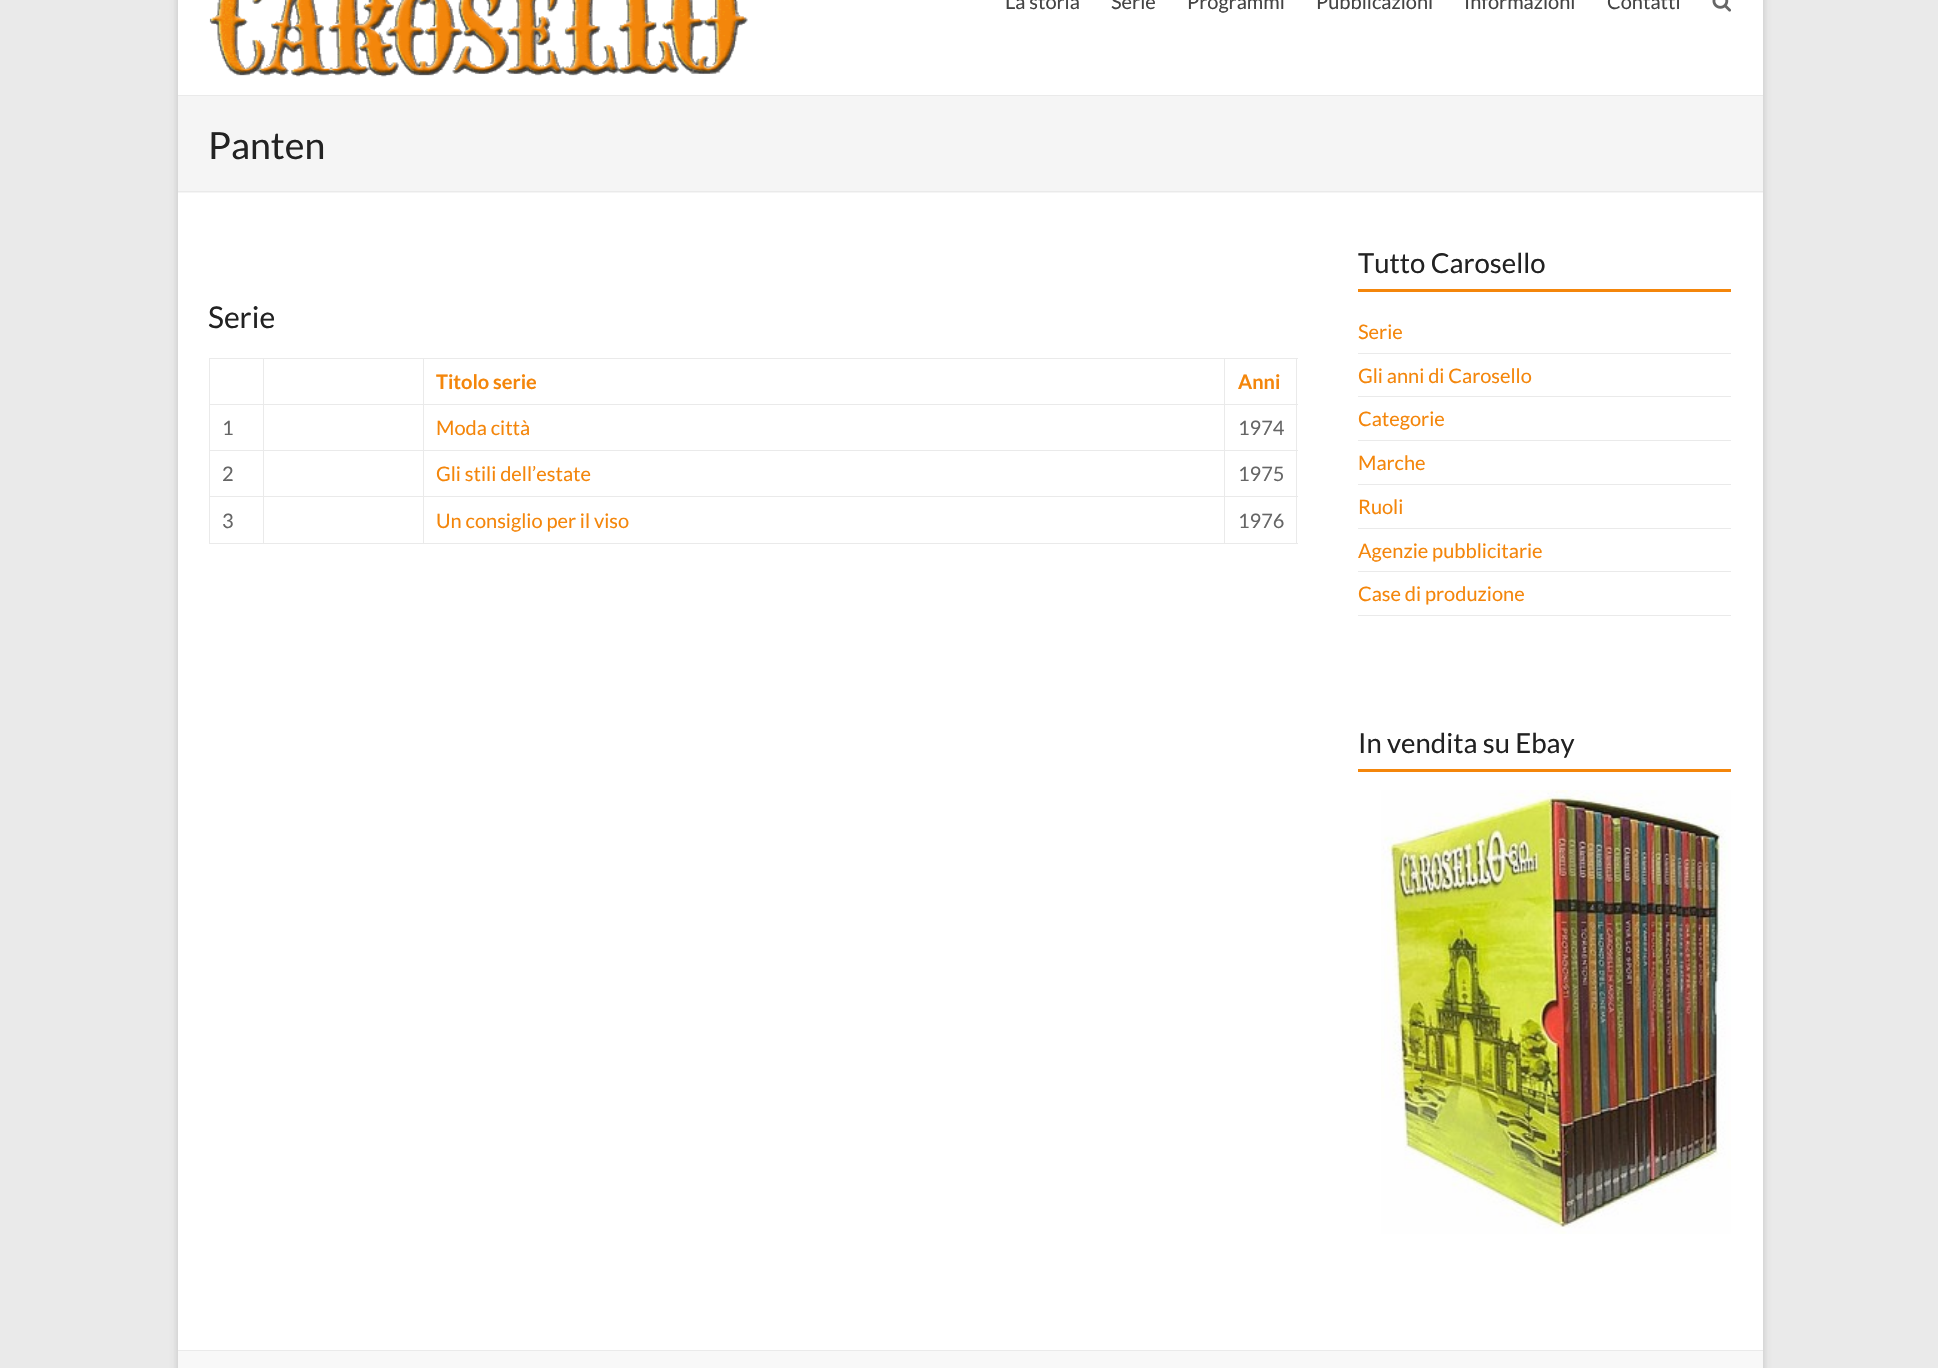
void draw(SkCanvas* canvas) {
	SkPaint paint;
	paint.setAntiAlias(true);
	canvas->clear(0xffeaeaea);
	paint.setColor(0x4d646464);
	paint.setMaskFilter(SkMaskFilter::MakeBlur(kNormal_SkBlurStyle, 4));
	canvas->drawRect(SkRect::MakeXYWH(178, -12, 1585, 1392), paint);
	paint.setMaskFilter(nullptr);
	paint.setColor(0xffffffff);
	canvas->drawRect(SkRect::MakeXYWH(178, 0, 1585, 1350), paint);
	paint.setColor(0xffeaeaea);
	canvas->drawRect(SkRect::MakeXYWH(178, 95, 1585, 1), paint);
	canvas->drawImageRect(SkImages::DeferredFromEncodedData(SkData::MakeFromFileName("img1.png")), SkRect::MakeXYWH(209, 0, 539, 77), SkSamplingOptions());
	SkFont f1(fontMgr->matchFamilyStyle("Lato", SkFontStyle::Normal()), 20);
	f1.setSubpixel(true);
	paint.setColor(0xff444444);
	canvas->drawString("La storia", 1005, 9, f1, paint);
	canvas->drawString("Serie", 1111, 9, f1, paint);
	canvas->drawString("Programmi", 1187, 9, f1, paint);
	canvas->drawString("Pubblicazioni", 1316, 9, f1, paint);
	canvas->drawString("Informazioni", 1464, 9, f1, paint);
	canvas->drawString("Contatti", 1607, 9, f1, paint);
	canvas->drawImageRect(SkImages::DeferredFromEncodedData(SkData::MakeFromFileName("img2.png")), SkRect::MakeXYWH(1712, 0, 19, 12), SkSamplingOptions());
	paint.setColor(0xfff5f5f5);
	canvas->drawRect(SkRect::MakeXYWH(178, 96, 1585, 97), paint);
	paint.setColor(0xffeaeaea);
	canvas->drawRect(SkRect::MakeXYWH(178, 191, 1585, 1), paint);
	SkFont f2(fontMgr->matchFamilyStyle("Lato", SkFontStyle::Normal()), 37.5);
	f2.setSubpixel(true);
	paint.setColor(0xff222222);
	canvas->drawString("Panten", 208, 159, f2, paint);
	SkFont f3(fontMgr->matchFamilyStyle("Lato", SkFontStyle::Normal()), 30);
	f3.setSubpixel(true);
	canvas->drawString("Serie", 208, 328, f3, paint);
	paint.setColor(0xffeaeaea);
	canvas->drawRect(SkRect::MakeXYWH(1224, 358, 74, 1), paint);
	canvas->drawRect(SkRect::MakeXYWH(1224, 404, 74, 1), paint);
	canvas->drawRect(SkRect::MakeXYWH(1224, 450, 74, 1), paint);
	canvas->drawRect(SkRect::MakeXYWH(1224, 496, 74, 1), paint);
	canvas->drawRect(SkRect::MakeXYWH(1296, 496, 1, 48), paint);
	canvas->drawRect(SkRect::MakeXYWH(1224, 543, 74, 1), paint);
	canvas->drawRect(SkRect::MakeXYWH(1224, 496, 1, 48), paint);
	canvas->drawRect(SkRect::MakeXYWH(423, 496, 802, 1), paint);
	canvas->drawRect(SkRect::MakeXYWH(1224, 450, 1, 48), paint);
	canvas->drawRect(SkRect::MakeXYWH(423, 450, 802, 1), paint);
	canvas->drawRect(SkRect::MakeXYWH(1224, 404, 1, 47), paint);
	canvas->drawRect(SkRect::MakeXYWH(423, 404, 802, 1), paint);
	canvas->drawRect(SkRect::MakeXYWH(1224, 358, 1, 47), paint);
	canvas->drawRect(SkRect::MakeXYWH(423, 358, 802, 1), paint);
	canvas->drawRect(SkRect::MakeXYWH(423, 543, 802, 1), paint);
	canvas->drawRect(SkRect::MakeXYWH(423, 496, 1, 48), paint);
	canvas->drawRect(SkRect::MakeXYWH(263, 496, 161, 1), paint);
	canvas->drawRect(SkRect::MakeXYWH(423, 450, 1, 48), paint);
	canvas->drawRect(SkRect::MakeXYWH(263, 450, 161, 1), paint);
	canvas->drawRect(SkRect::MakeXYWH(423, 404, 1, 47), paint);
	canvas->drawRect(SkRect::MakeXYWH(263, 404, 161, 1), paint);
	canvas->drawRect(SkRect::MakeXYWH(423, 358, 1, 47), paint);
	canvas->drawRect(SkRect::MakeXYWH(263, 358, 161, 1), paint);
	canvas->drawRect(SkRect::MakeXYWH(263, 543, 161, 1), paint);
	canvas->drawRect(SkRect::MakeXYWH(263, 496, 1, 48), paint);
	canvas->drawRect(SkRect::MakeXYWH(209, 496, 55, 1), paint);
	canvas->drawRect(SkRect::MakeXYWH(263, 450, 1, 48), paint);
	canvas->drawRect(SkRect::MakeXYWH(209, 450, 55, 1), paint);
	canvas->drawRect(SkRect::MakeXYWH(263, 404, 1, 47), paint);
	canvas->drawRect(SkRect::MakeXYWH(209, 404, 55, 1), paint);
	canvas->drawRect(SkRect::MakeXYWH(263, 358, 1, 47), paint);
	canvas->drawRect(SkRect::MakeXYWH(209, 358, 55, 1), paint);
	canvas->drawRect(SkRect::MakeXYWH(209, 543, 55, 1), paint);
	canvas->drawRect(SkRect::MakeXYWH(209, 496, 1, 48), paint);
	canvas->drawRect(SkRect::MakeXYWH(209, 450, 1, 48), paint);
	canvas->drawRect(SkRect::MakeXYWH(209, 404, 1, 47), paint);
	canvas->drawRect(SkRect::MakeXYWH(209, 358, 1, 47), paint);
	SkFont f4(fontMgr->matchFamilyStyle("Lato", SkFontStyle::Bold()), 20);
	f4.setSubpixel(true);
	paint.setColor(0xfff4860b);
	canvas->drawString("Titolo serie", 436, 389, f4, paint);
	paint.setColor(0xffeaeaea);
	canvas->drawRect(SkRect::MakeXYWH(1296, 450, 1, 48), paint);
	canvas->drawRect(SkRect::MakeXYWH(1296, 404, 1, 47), paint);
	canvas->drawRect(SkRect::MakeXYWH(1296, 358, 1, 47), paint);
	paint.setColor(0xfff4860b);
	canvas->drawString("Anni", 1238, 389, f4, paint);
	paint.setColor(0xff666666);
	canvas->drawString("1", 222, 435, f1, paint);
	paint.setColor(0xfff4860b);
	canvas->drawString("Moda città", 436, 435, f1, paint);
	paint.setColor(0xff666666);
	canvas->drawString("1974", 1238, 435, f1, paint);
	canvas->drawString("2", 222, 481, f1, paint);
	paint.setColor(0xfff4860b);
	canvas->drawString("Gli stili dell’estate", 436, 481, f1, paint);
	paint.setColor(0xff666666);
	canvas->drawString("1975", 1238, 481, f1, paint);
	canvas->drawString("3", 222, 528, f1, paint);
	paint.setColor(0xfff4860b);
	canvas->drawString("Un consiglio per il viso", 436, 528, f1, paint);
	paint.setColor(0xff666666);
	canvas->drawString("1976", 1238, 528, f1, paint);
	paint.setColor(0xfff4860b);
	canvas->drawRect(SkRect::MakeXYWH(1358, 289, 373, 3), paint);
	SkFont f5(fontMgr->matchFamilyStyle("Lato", SkFontStyle::Normal()), 27.5);
	f5.setSubpixel(true);
	paint.setColor(0xff222222);
	canvas->drawString("Tutto Carosello", 1358, 273, f5, paint);
	paint.setColor(0xffeaeaea);
	canvas->drawRect(SkRect::MakeXYWH(1358, 353, 373, 1), paint);
	paint.setColor(0xfff4860b);
	canvas->drawString("Serie", 1358, 339, f1, paint);
	paint.setColor(0xffeaeaea);
	canvas->drawRect(SkRect::MakeXYWH(1358, 396, 373, 1), paint);
	paint.setColor(0xfff4860b);
	canvas->drawString("Gli anni di Carosello", 1358, 383, f1, paint);
	paint.setColor(0xffeaeaea);
	canvas->drawRect(SkRect::MakeXYWH(1358, 440, 373, 1), paint);
	paint.setColor(0xfff4860b);
	canvas->drawString("Categorie", 1358, 426, f1, paint);
	paint.setColor(0xffeaeaea);
	canvas->drawRect(SkRect::MakeXYWH(1358, 484, 373, 1), paint);
	paint.setColor(0xfff4860b);
	canvas->drawString("Marche", 1358, 470, f1, paint);
	paint.setColor(0xffeaeaea);
	canvas->drawRect(SkRect::MakeXYWH(1358, 528, 373, 1), paint);
	paint.setColor(0xfff4860b);
	canvas->drawString("Ruoli", 1358, 514, f1, paint);
	paint.setColor(0xffeaeaea);
	canvas->drawRect(SkRect::MakeXYWH(1358, 571, 373, 1), paint);
	paint.setColor(0xfff4860b);
	canvas->drawString("Agenzie pubblicitarie", 1358, 558, f1, paint);
	paint.setColor(0xffeaeaea);
	canvas->drawRect(SkRect::MakeXYWH(1358, 615, 373, 1), paint);
	paint.setColor(0xfff4860b);
	canvas->drawString("Case di produzione", 1358, 601, f1, paint);
	canvas->drawRect(SkRect::MakeXYWH(1358, 769, 373, 3), paint);
	paint.setColor(0xff222222);
	canvas->drawString("In vendita su Ebay", 1358, 753, f5, paint);
	canvas->drawImageRect(SkImages::DeferredFromEncodedData(SkData::MakeFromFileName("img3.png")), SkRect::MakeXYWH(1381, 790, 350, 444), SkSamplingOptions());
	paint.setColor(0xfff8f8f8);
	canvas->drawRect(SkRect::MakeXYWH(178, 1351, 1585, 17), paint);
	paint.setColor(0xffeaeaea);
	canvas->drawRect(SkRect::MakeXYWH(178, 1350, 1585, 1), paint);
}
